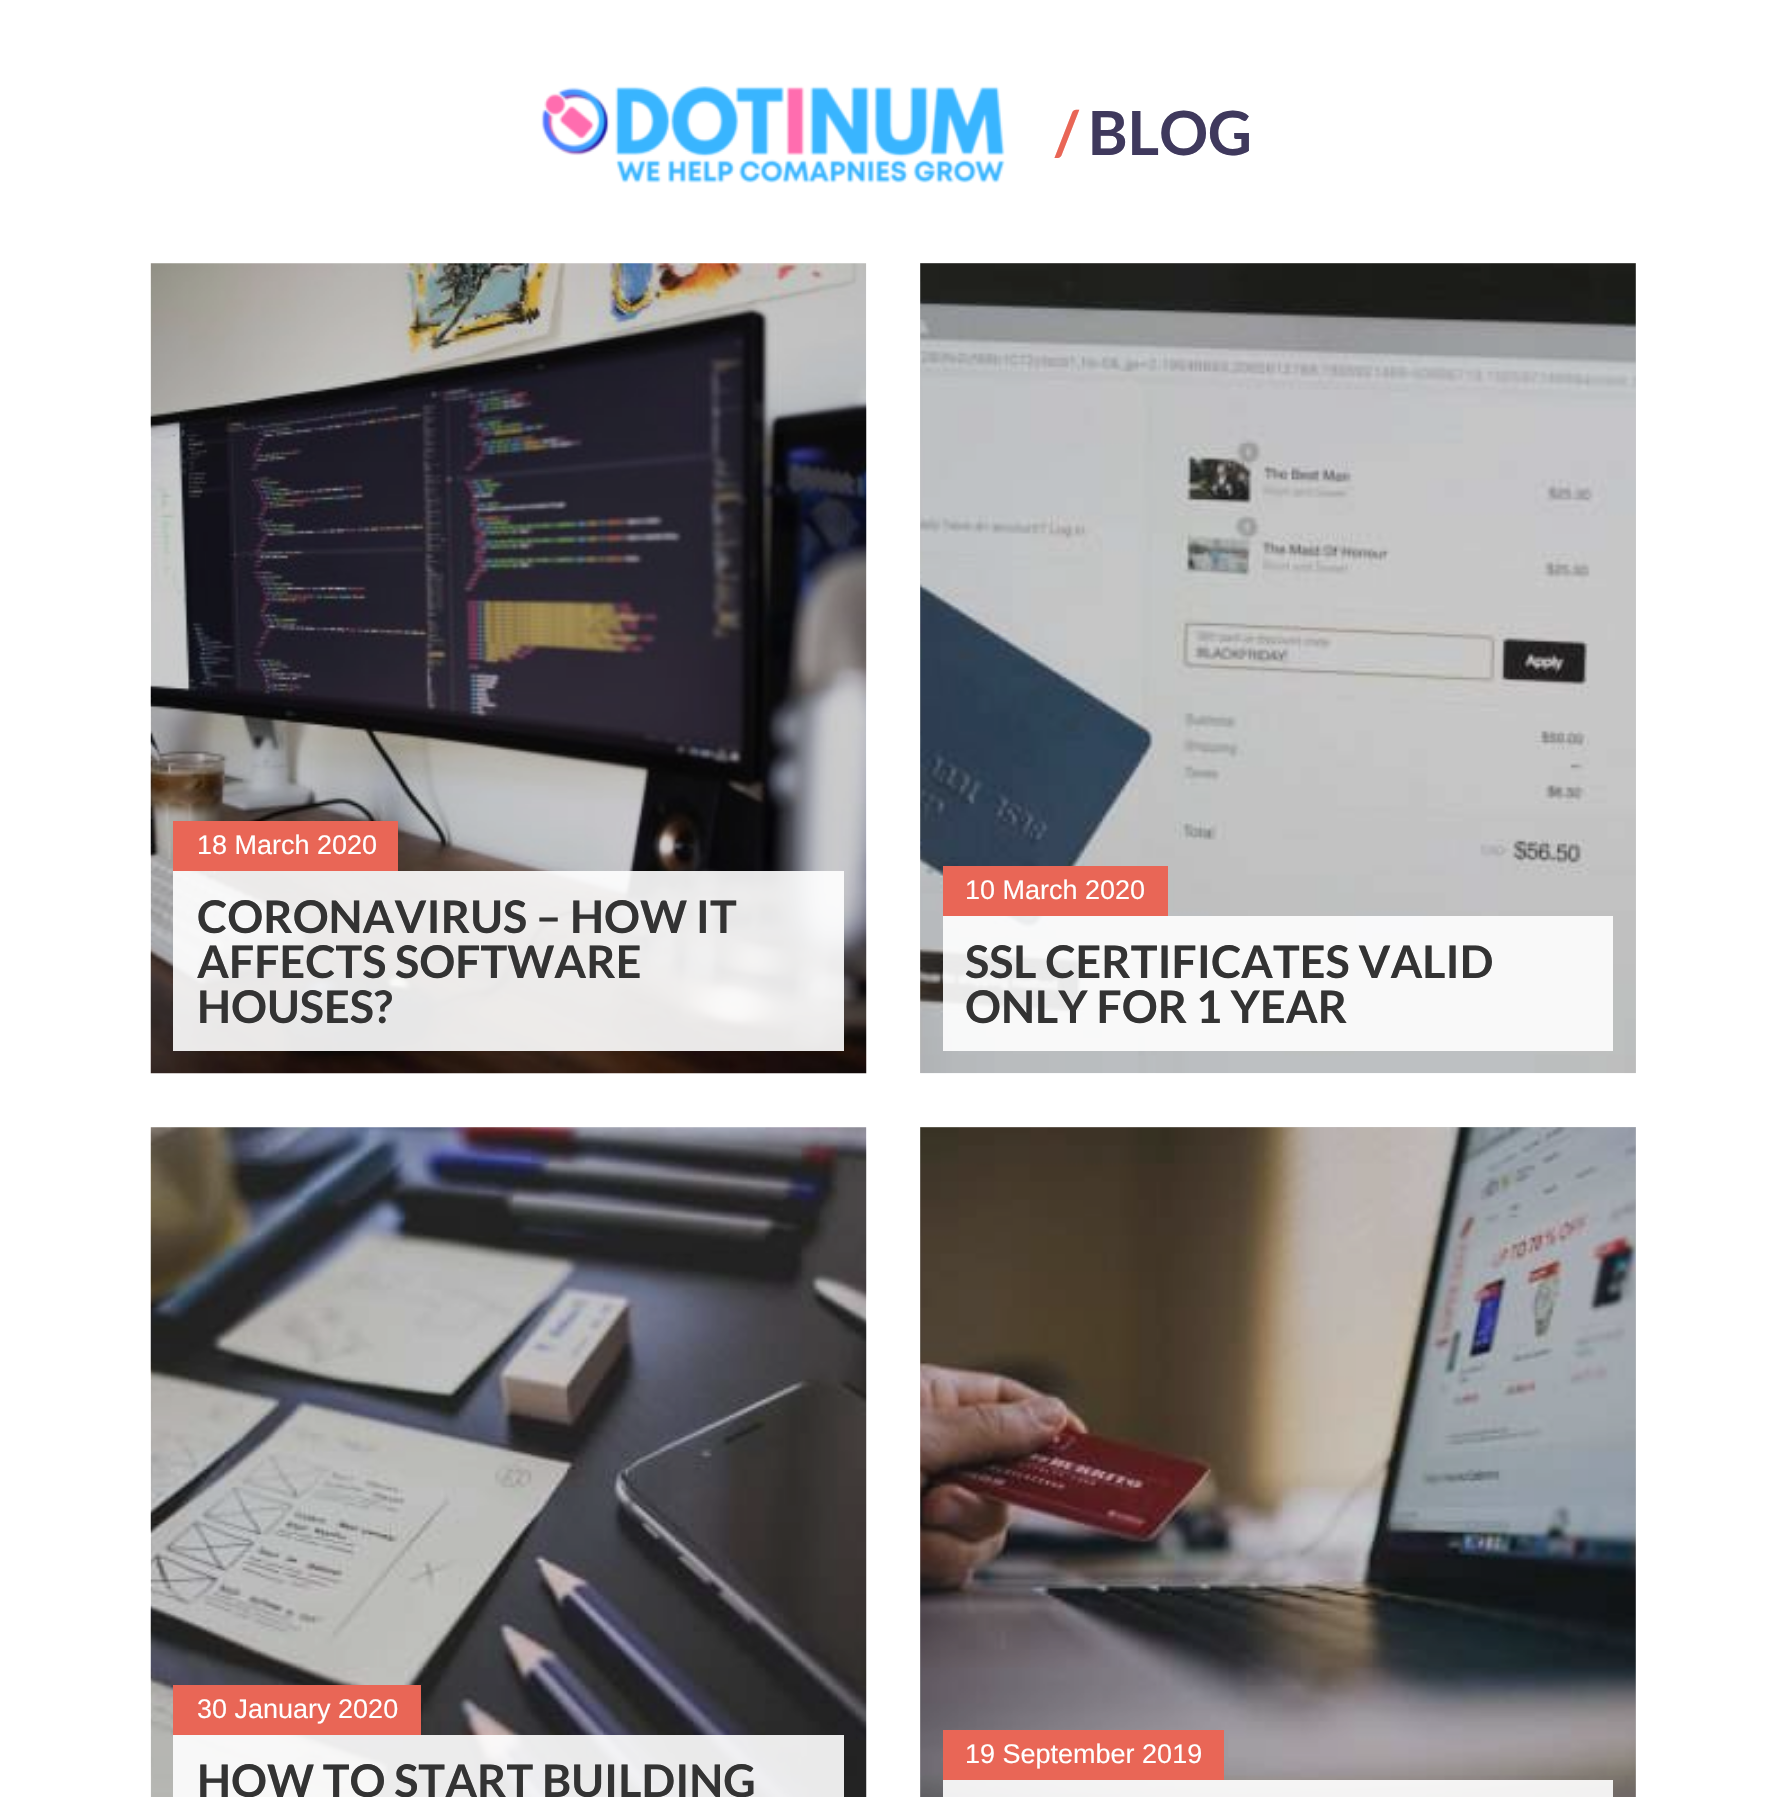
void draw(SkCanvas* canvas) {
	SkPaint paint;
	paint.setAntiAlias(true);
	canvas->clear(0xffffffff);
	paint.setColor(0xffcccccc);
	canvas->drawRect(SkRect::MakeXYWH(920, 1127, 716, 670), paint);
	canvas->drawRect(SkRect::MakeXYWH(920, 263, 716, 810), paint);
	canvas->drawImageRect(SkImages::DeferredFromEncodedData(SkData::MakeFromFileName("img1.png")), SkRect::MakeXYWH(541, 86, 464, 97), SkSamplingOptions());
	SkFont f1(fontMgr->matchFamilyStyle("Lato", SkFontStyle::Bold()), 61);
	f1.setSubpixel(true);
	paint.setColor(0xffe96656);
	canvas->drawString("/", 1055, 155, f1, paint);
	paint.setColor(0xff3f395d);
	canvas->drawString("BLOG", 1088, 155, f1, paint);
	canvas->drawImageRect(SkImages::DeferredFromEncodedData(SkData::MakeFromFileName("img2.png")), SkRect::MakeXYWH(150, 263, 717, 811), SkSamplingOptions());
	paint.setColor(0xffe96656);
	canvas->drawRect(SkRect::MakeXYWH(173, 821, 225, 50), paint);
	SkFont f2(fontMgr->matchFamilyStyle("Liberation Sans", SkFontStyle::Normal()), 27);
	f2.setSubpixel(true);
	paint.setColor(0xffffffff);
	canvas->drawString("18 March 2020", 197, 854, f2, paint);
	paint.setColor(0xe6ffffff);
	canvas->drawRect(SkRect::MakeXYWH(173, 871, 671, 180), paint);
	SkFont f3(fontMgr->matchFamilyStyle("Lato", SkFontStyle::Bold()), 45);
	f3.setSubpixel(true);
	paint.setColor(0xff333333);
	canvas->drawString("CORONAVIRUS – HOW IT", 197, 933, f3, paint);
	canvas->drawString("AFFECTS SOFTWARE", 197, 978, f3, paint);
	canvas->drawString("HOUSES?", 197, 1023, f3, paint);
	canvas->drawImageRect(SkImages::DeferredFromEncodedData(SkData::MakeFromFileName("img3.png")), SkRect::MakeXYWH(920, 263, 716, 811), SkSamplingOptions());
	paint.setColor(0xffe96656);
	canvas->drawRect(SkRect::MakeXYWH(943, 866, 225, 50), paint);
	paint.setColor(0xffffffff);
	canvas->drawString("10 March 2020", 965, 899, f2, paint);
	paint.setColor(0xe6ffffff);
	canvas->drawRect(SkRect::MakeXYWH(943, 916, 670, 135), paint);
	paint.setColor(0xff333333);
	canvas->drawString("SSL CERTIFICATES VALID", 965, 978, f3, paint);
	canvas->drawString("ONLY FOR 1 YEAR", 965, 1023, f3, paint);
	canvas->drawImageRect(SkImages::DeferredFromEncodedData(SkData::MakeFromFileName("img4.png")), SkRect::MakeXYWH(150, 1127, 717, 670), SkSamplingOptions());
	paint.setColor(0xffe96656);
	canvas->drawRect(SkRect::MakeXYWH(173, 1685, 248, 50), paint);
	paint.setColor(0xffffffff);
	canvas->drawString("30 January 2020", 197, 1718, f2, paint);
	paint.setColor(0xe6ffffff);
	canvas->drawRect(SkRect::MakeXYWH(173, 1735, 671, 62), paint);
	paint.setColor(0xff333333);
	canvas->drawString("HOW TO START BUILDING", 197, 1797, f3, paint);
	canvas->drawImageRect(SkImages::DeferredFromEncodedData(SkData::MakeFromFileName("img5.png")), SkRect::MakeXYWH(920, 1127, 716, 670), SkSamplingOptions());
	paint.setColor(0xffe96656);
	canvas->drawRect(SkRect::MakeXYWH(943, 1730, 281, 50), paint);
	paint.setColor(0xffffffff);
	canvas->drawString("19 September 2019", 965, 1763, f2, paint);
	paint.setColor(0xe6ffffff);
	canvas->drawRect(SkRect::MakeXYWH(943, 1780, 670, 17), paint);
}
